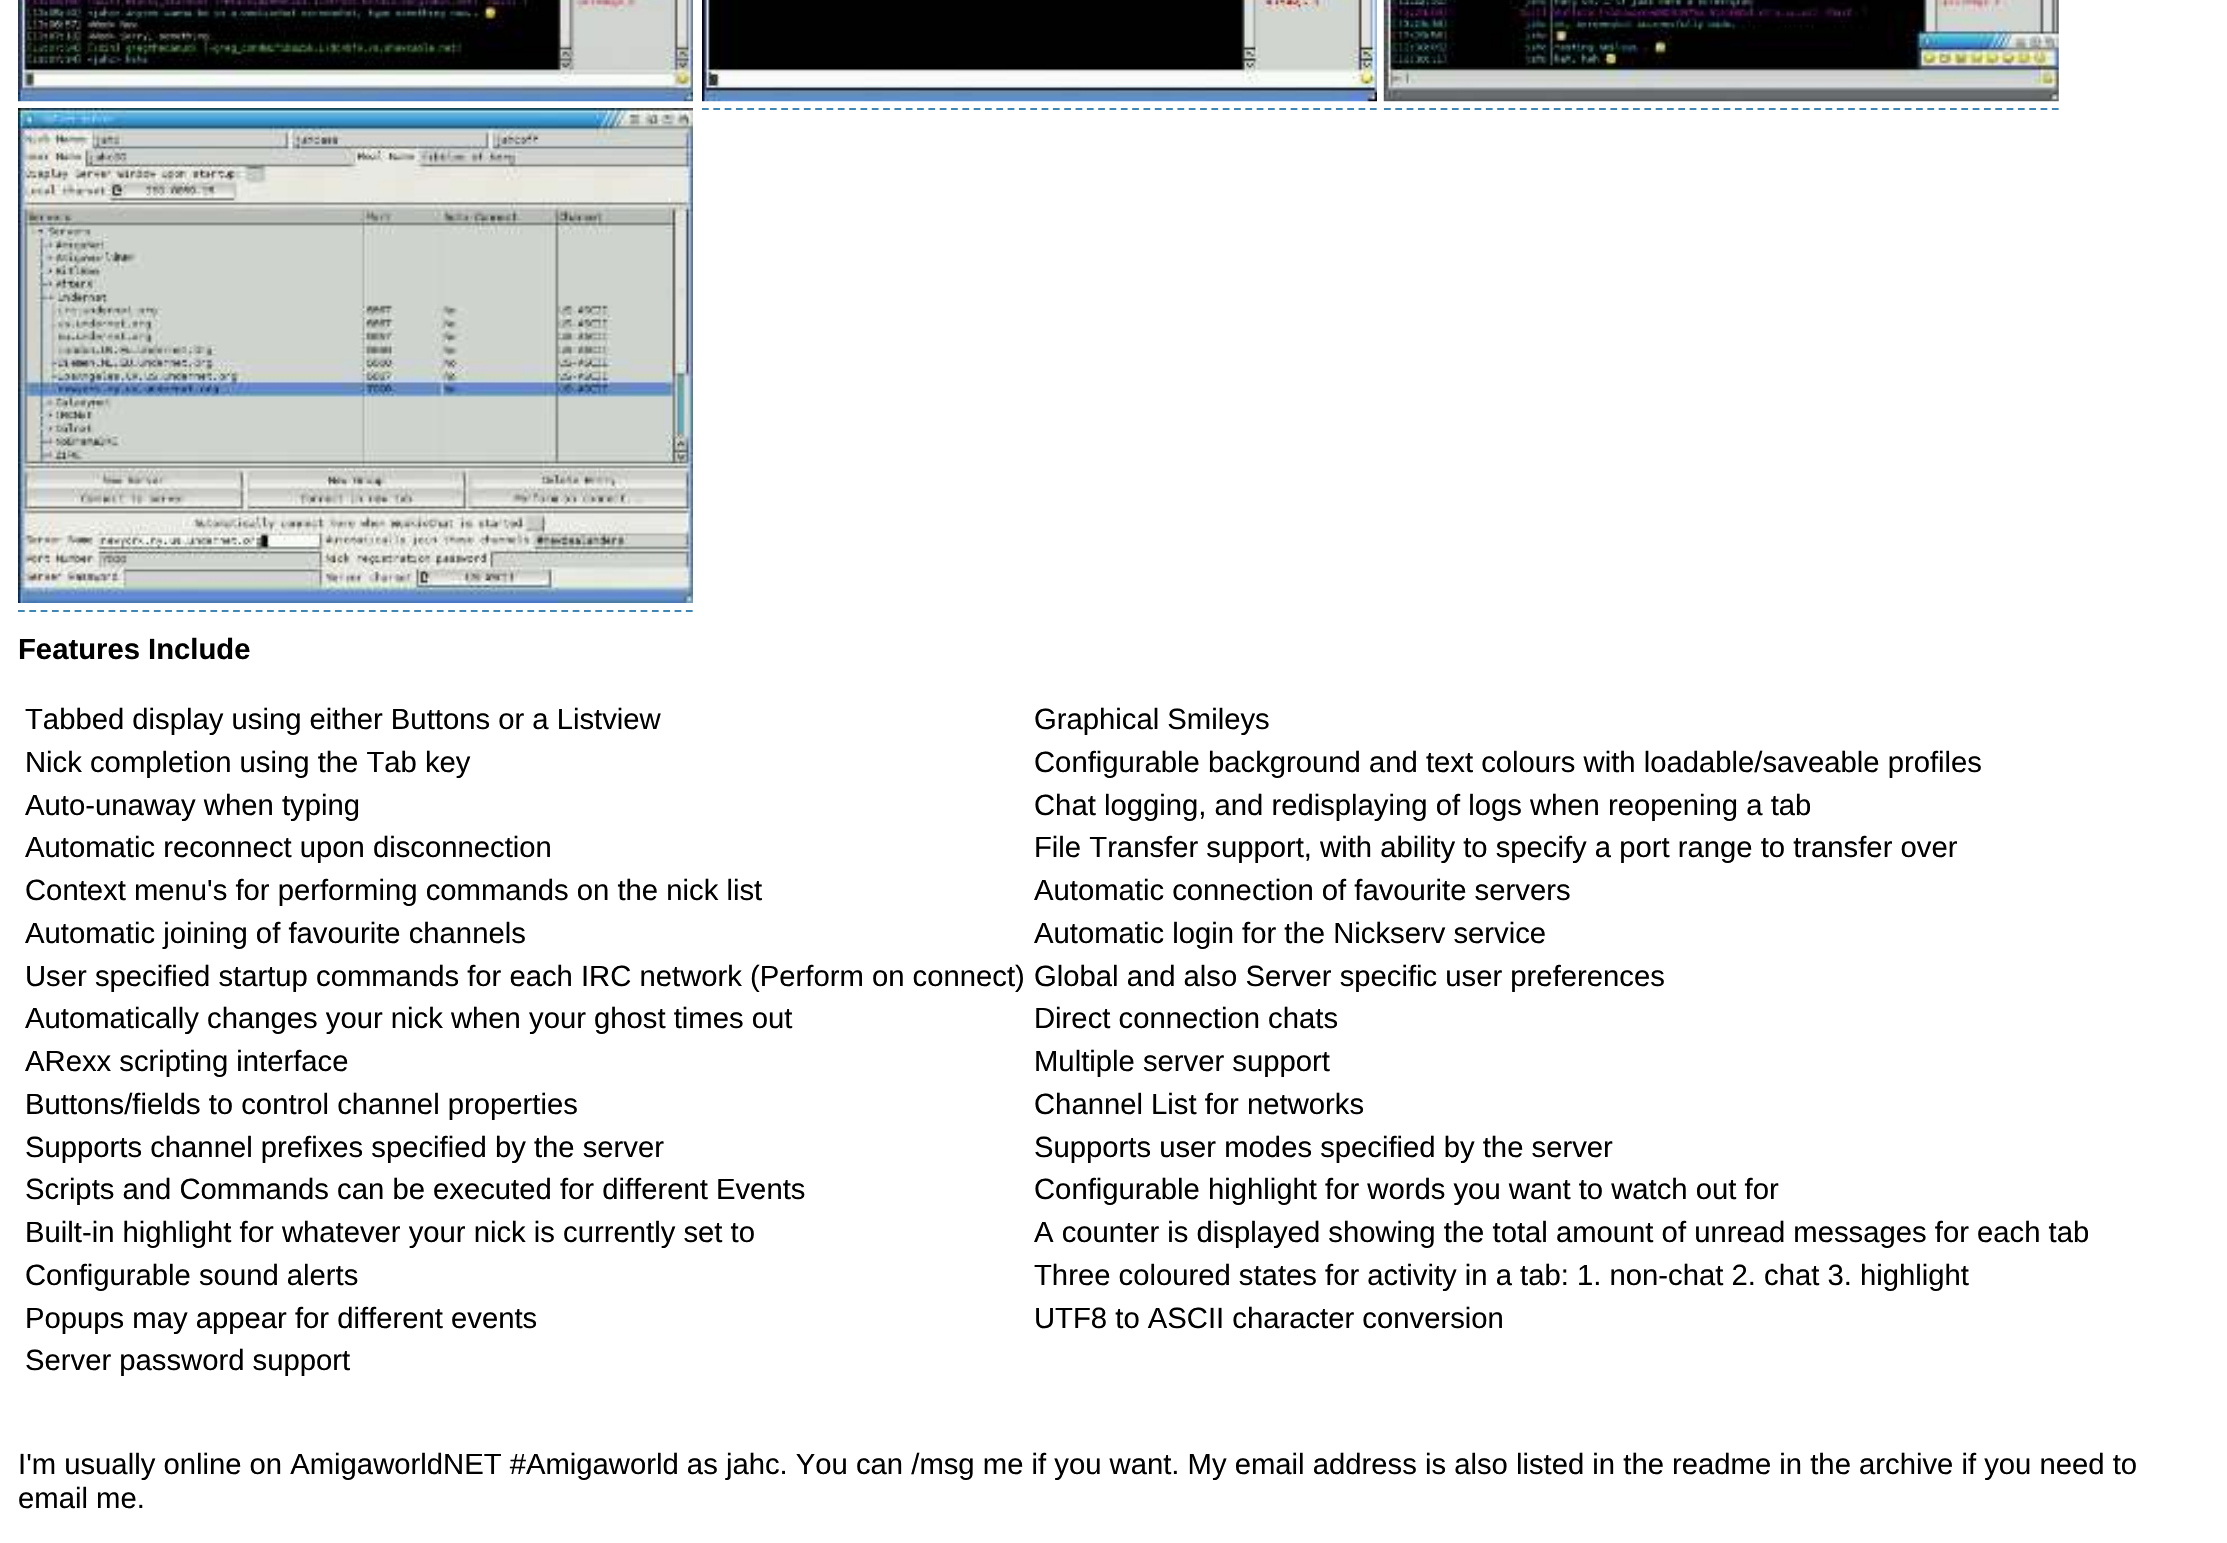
void draw(SkCanvas* canvas) {
	SkPaint paint;
	paint.setAntiAlias(true);
	auto svgPath = [&](const char* data, bool evenOdd = false) {
		SkPath result = *SkParsePath::FromSVGString(data);
		if (evenOdd) result.setFillType(SkPathFillType::kEvenOdd);
		return result;
	};
	canvas->clear(0xffffffff);
	canvas->drawImageRect(SkImages::DeferredFromEncodedData(SkData::MakeFromFileName("img1.png")), SkRect::MakeXYWH(18, 0, 675, 102), SkSamplingOptions());
	canvas->drawImageRect(SkImages::DeferredFromEncodedData(SkData::MakeFromFileName("img2.png")), SkRect::MakeXYWH(702, 0, 675, 102), SkSamplingOptions());
	canvas->drawImageRect(SkImages::DeferredFromEncodedData(SkData::MakeFromFileName("img3.png")), SkRect::MakeXYWH(1383, 0, 676, 102), SkSamplingOptions());
	paint.setStroke(true);
	paint.setStrokeWidth(2.2);
	paint.setColor(0xff3e86b6);
	paint.setPathEffect(SkDashPathEffect::Make({{6.75f, 4.57f}}, 0));
	canvas->drawPath(svgPath("M18 109H693"), paint);
	paint.setPathEffect(nullptr);
	paint.setPathEffect(SkDashPathEffect::Make({{6.75f, 4.57f}}, 0));
	canvas->drawPath(svgPath("M702 109H1377"), paint);
	paint.setPathEffect(nullptr);
	paint.setPathEffect(SkDashPathEffect::Make({{6.75f, 4.57f}}, 0));
	canvas->drawPath(svgPath("M1384 109H2059"), paint);
	paint.setPathEffect(nullptr);
	canvas->drawImageRect(SkImages::DeferredFromEncodedData(SkData::MakeFromFileName("img4.png")), SkRect::MakeXYWH(18, 108, 675, 495), SkSamplingOptions());
	paint.setPathEffect(SkDashPathEffect::Make({{6.75f, 4.57f}}, 0));
	canvas->drawPath(svgPath("M18 611H693"), paint);
	paint.setPathEffect(nullptr);
	SkFont f1(fontMgr->matchFamilyStyle("Liberation Sans", SkFontStyle::Bold()), 29.25);
	f1.setSubpixel(true);
	paint.setStroke(false);
	paint.setColor(0xff000000);
	canvas->drawString("Features Include", 18, 659, f1, paint);
	SkFont f2(fontMgr->matchFamilyStyle("Liberation Sans", SkFontStyle::Normal()), 29.25);
	f2.setSubpixel(true);
	canvas->drawString("Tabbed display using either Buttons or a Listview", 25, 729, f2, paint);
	canvas->drawString("Graphical Smileys", 1034, 729, f2, paint);
	canvas->drawString("Nick completion using the Tab key", 25, 772, f2, paint);
	canvas->drawString("Configurable background and text colours with loadable/saveable profiles", 1034, 772, f2, paint);
	canvas->drawString("Auto-unaway when typing", 25, 815, f2, paint);
	canvas->drawString("Chat logging, and redisplaying of logs when reopening a tab", 1034, 815, f2, paint);
	canvas->drawString("Automatic reconnect upon disconnection", 25, 857, f2, paint);
	canvas->drawString("File Transfer support, with ability to specify a port range to transfer over", 1034, 857, f2, paint);
	canvas->drawString("Context menu's for performing commands on the nick list", 25, 900, f2, paint);
	canvas->drawString("Automatic connection of favourite servers", 1034, 900, f2, paint);
	canvas->drawString("Automatic joining of favourite channels", 25, 943, f2, paint);
	canvas->drawString("Automatic login for the Nickserv service", 1034, 943, f2, paint);
	canvas->drawString("User specified startup commands for each IRC network (Perform on connect)", 25, 986, f2, paint);
	canvas->drawString("Global and also Server specific user preferences", 1034, 986, f2, paint);
	canvas->drawString("Automatically changes your nick when your ghost times out", 25, 1028, f2, paint);
	canvas->drawString("Direct connection chats", 1034, 1028, f2, paint);
	canvas->drawString("ARexx scripting interface", 25, 1071, f2, paint);
	canvas->drawString("Multiple server support", 1034, 1071, f2, paint);
	canvas->drawString("Buttons/fields to control channel properties", 25, 1114, f2, paint);
	canvas->drawString("Channel List for networks", 1034, 1114, f2, paint);
	canvas->drawString("Supports channel prefixes specified by the server", 25, 1157, f2, paint);
	canvas->drawString("Supports user modes specified by the server", 1034, 1157, f2, paint);
	canvas->drawString("Scripts and Commands can be executed for different Events", 25, 1199, f2, paint);
	canvas->drawString("Configurable highlight for words you want to watch out for", 1034, 1199, f2, paint);
	canvas->drawString("Built-in highlight for whatever your nick is currently set to", 25, 1242, f2, paint);
	canvas->drawString("A counter is displayed showing the total amount of unread messages for each tab", 1034, 1242, f2, paint);
	canvas->drawString("Configurable sound alerts", 25, 1285, f2, paint);
	canvas->drawString("Three coloured states for activity in a tab: 1. non-chat 2. chat 3. highlight", 1034, 1285, f2, paint);
	canvas->drawString("Popups may appear for different events", 25, 1328, f2, paint);
	canvas->drawString("UTF8 to ASCII character conversion", 1034, 1328, f2, paint);
	canvas->drawString("Server password support", 25, 1370, f2, paint);
	canvas->drawString("I'm usually online on AmigaworldNET #Amigaworld as jahc. You can /msg me if you want. My email address is also listed in the readme in the archive if you need to", 18, 1474, f2, paint);
	canvas->drawString("email me.", 18, 1508, f2, paint);
}
